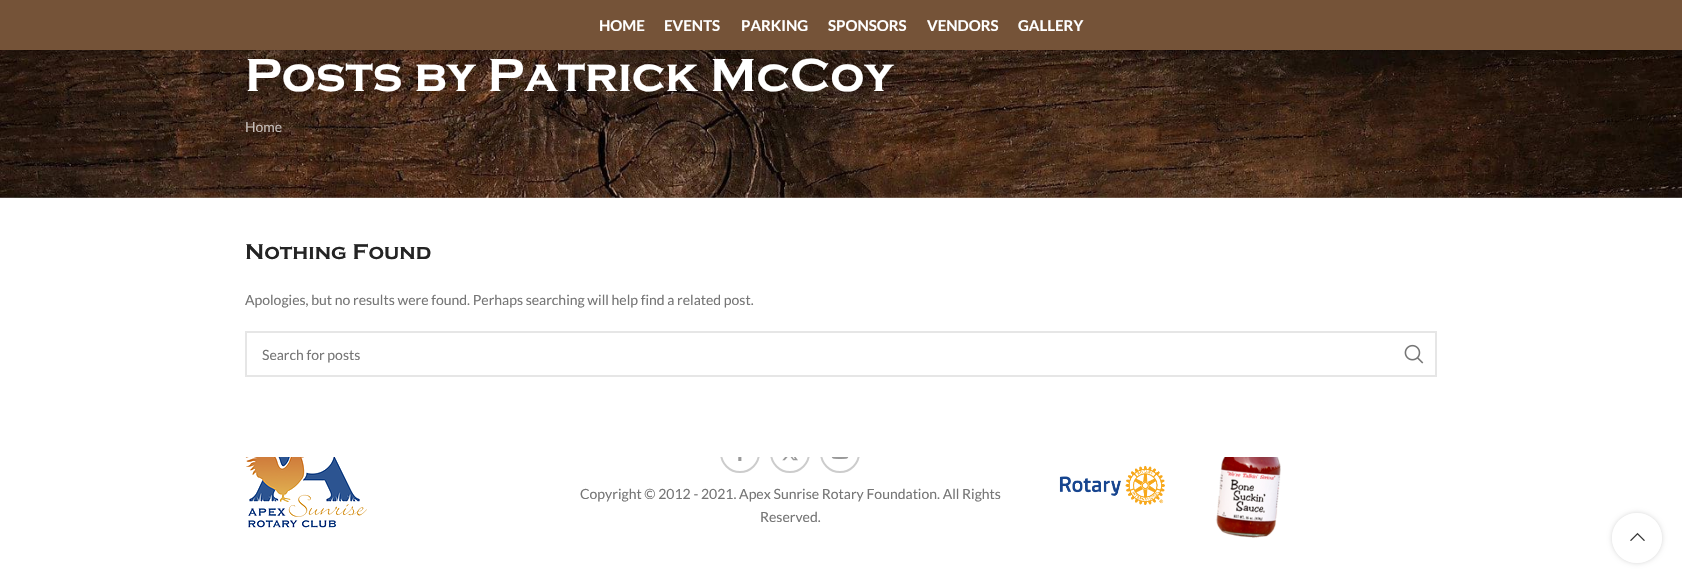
void draw(SkCanvas* canvas) {
	SkPaint paint;
	paint.setAntiAlias(true);
	auto svgPath = [&](const char* data, bool evenOdd = false) {
		SkPath result = *SkParsePath::FromSVGString(data);
		if (evenOdd) result.setFillType(SkPathFillType::kEvenOdd);
		return result;
	};
	canvas->clear(0xffffffff);
	canvas->drawImageRect(SkImages::DeferredFromEncodedData(SkData::MakeFromFileName("img1.png")), SkRect::MakeXYWH(0, 50, 1682, 148), SkSamplingOptions());
	paint.setColor(0x1a000000);
	paint.setMaskFilter(SkMaskFilter::MakeBlur(kNormal_SkBlurStyle, 1.5));
	canvas->drawRect(SkRect::MakeXYWH(0, 1, 1682, 50), paint);
	paint.setMaskFilter(nullptr);
	paint.setMaskFilter(SkMaskFilter::MakeBlur(kNormal_SkBlurStyle, 4));
	canvas->drawRect(SkRect::MakeXYWH(0, 1, 1682, 50), paint);
	paint.setMaskFilter(nullptr);
	paint.setColor(0xff755338);
	canvas->drawRect(SkRect::MakeXYWH(0, 0, 1682, 50), paint);
	SkFont f1(fontMgr->matchFamilyStyle("Lato", SkFontStyle::Bold()), 15);
	f1.setSubpixel(true);
	paint.setColor(0xffffffff);
	canvas->drawString("HOME", 599, 31, f1, paint);
	canvas->drawString("EVENTS", 664, 31, f1, paint);
	canvas->drawString("PARKING", 741, 31, f1, paint);
	canvas->drawString("SPONSORS", 828, 31, f1, paint);
	canvas->drawString("VENDORS", 927, 31, f1, paint);
	canvas->drawString("GALLERY", 1018, 31, f1, paint);
	SkFont f2(fontMgr->matchFamilyStyle("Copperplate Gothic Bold", SkFontStyle::Bold()), 48);
	f2.setSubpixel(true);
	canvas->drawString("Posts by Patrick McCoy", 245, 91, f2, paint);
	SkFont f3(fontMgr->matchFamilyStyle("Lato", SkFontStyle::Normal()), 14);
	f3.setSubpixel(true);
	paint.setColor(0xffc6beba);
	canvas->drawString("Home", 245, 132, f3, paint);
	SkFont f4(fontMgr->matchFamilyStyle("Copperplate Gothic Bold", SkFontStyle::Bold()), 22);
	f4.setSubpixel(true);
	paint.setColor(0xff242424);
	canvas->drawString("Nothing Found", 245, 259, f4, paint);
	paint.setColor(0xff767676);
	canvas->drawString("Apologies, but no results were found. Perhaps searching will help find a related post.", 245, 305, f3, paint);
	paint.setStroke(true);
	paint.setStrokeWidth(2);
	paint.setColor(0xffe6e6e6);
	canvas->drawRect(SkRect::MakeXYWH(246, 332, 1190, 44), paint);
	paint.setStroke(false);
	paint.setColor(0xff767676);
	canvas->drawString("Search for posts", 262, 360, f3, paint);
	canvas->drawImageRect(SkImages::DeferredFromEncodedData(SkData::MakeFromFileName("img2.png")), SkRect::MakeXYWH(1404, 344, 20, 20), SkSamplingOptions());
	paint.setStroke(true);
	paint.setColor(0xffcccccc);
	canvas->drawCircle(740, 453, 19, paint);
	canvas->drawCircle(790, 453, 19, paint);
	canvas->drawCircle(840, 453, 19, paint);
	paint.setStroke(false);
	paint.setColor(0xffffffff);
	canvas->drawRect(SkRect::MakeXYWH(720, 433, 140, 24), paint);
	canvas->drawImageRect(SkImages::DeferredFromEncodedData(SkData::MakeFromFileName("img3.png")), SkRect::MakeXYWH(245, 457, 122, 71), SkSamplingOptions());
	canvas->drawImageRect(SkImages::DeferredFromEncodedData(SkData::MakeFromFileName("img4.png")), SkRect::MakeXYWH(738, 457, 4, 4), SkSamplingOptions());
	canvas->drawImageRect(SkImages::DeferredFromEncodedData(SkData::MakeFromFileName("img5.png")), SkRect::MakeXYWH(782, 457, 16, 4), SkSamplingOptions());
	canvas->drawImageRect(SkImages::DeferredFromEncodedData(SkData::MakeFromFileName("img6.png")), SkRect::MakeXYWH(831, 457, 18, 2), SkSamplingOptions());
	paint.setColor(0xff767676);
	canvas->drawString("Copyright © 2012 - 2021. Apex Sunrise Rotary Foundation. All Rights", 580, 499, f3, paint);
	canvas->drawString("Reserved.", 760, 522, f3, paint);
	canvas->drawImageRect(SkImages::DeferredFromEncodedData(SkData::MakeFromFileName("img7.png")), SkRect::MakeXYWH(1059, 465, 106, 40), SkSamplingOptions());
	canvas->drawImageRect(SkImages::DeferredFromEncodedData(SkData::MakeFromFileName("img8.png")), SkRect::MakeXYWH(1215, 457, 66, 81), SkSamplingOptions());
	canvas->save();
	canvas->clipPath(svgPath("M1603 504H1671V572H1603ZM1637 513C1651 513 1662 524 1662 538C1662 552 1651 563 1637 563C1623 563 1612 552 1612 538C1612 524 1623 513 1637 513Z", true), true);
	paint.setColor(0x2b000000);
	paint.setMaskFilter(SkMaskFilter::MakeBlur(kNormal_SkBlurStyle, 2.5));
	canvas->drawRoundRect(SkRect::MakeXYWH(1612, 513, 50, 50), 25, 25, paint);
	paint.setMaskFilter(nullptr);
	canvas->restore();
	paint.setColor(0xe6ffffff);
	canvas->drawCircle(1637, 538, 25, paint);
	canvas->drawImageRect(SkImages::DeferredFromEncodedData(SkData::MakeFromFileName("img9.png")), SkRect::MakeXYWH(1630, 532, 15, 9), SkSamplingOptions());
}
